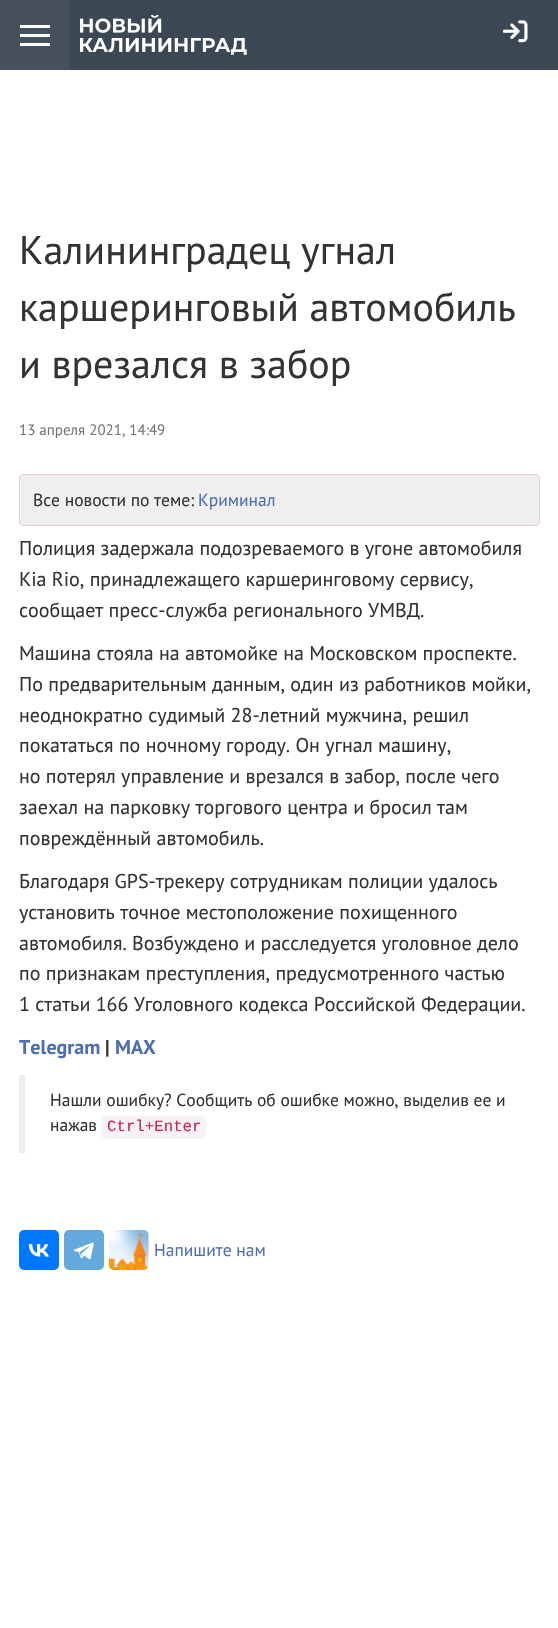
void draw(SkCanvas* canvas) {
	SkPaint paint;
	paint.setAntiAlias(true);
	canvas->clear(0xffffffff);
	paint.setColor(0xff3b4753);
	canvas->drawRect(SkRect::MakeXYWH(70, 0, 488, 70), paint);
	paint.setColor(0xff45505c);
	canvas->drawRect(SkRect::MakeXYWH(0, 0, 70, 70), paint);
	paint.setColor(0xffffffff);
	canvas->drawRect(SkRect::MakeXYWH(20, 34, 30, 3), paint);
	canvas->drawRect(SkRect::MakeXYWH(20, 25, 30, 3), paint);
	canvas->drawRect(SkRect::MakeXYWH(20, 43, 30, 3), paint);
	canvas->drawImageRect(SkImages::DeferredFromEncodedData(SkData::MakeFromFileName("img1.png")), SkRect::MakeXYWH(80, 15, 167, 40), SkSamplingOptions());
	canvas->drawImageRect(SkImages::DeferredFromEncodedData(SkData::MakeFromFileName("img2.png")), SkRect::MakeXYWH(503, 20, 25, 23), SkSamplingOptions());
	SkFont f1(fontMgr->matchFamilyStyle("PT Sans", SkFontStyle::Normal()), 40);
	f1.setSubpixel(true);
	paint.setColor(0xff333333);
	canvas->drawString("Калининградец угнал", 19, 264, f1, paint);
	canvas->drawString("каршеринговый автомобиль", 19, 321, f1, paint);
	canvas->drawString("и врезался в забор", 19, 378, f1, paint);
	SkFont f2(fontMgr->matchFamilyStyle("PT Sans", SkFontStyle::Normal()), 15);
	f2.setSubpixel(true);
	paint.setColor(0xff757575);
	canvas->drawString("13 апреля 2021, 14:49", 19, 435, f2, paint);
	paint.setColor(0xfff0efef);
	canvas->drawRoundRect(SkRect::MakeXYWH(19.5, 474.5, 520, 51), 3.5, 3.5, paint);
	paint.setStroke(true);
	paint.setStrokeWidth(1);
	paint.setColor(0xffebccd1);
	canvas->drawRoundRect(SkRect::MakeXYWH(19.5, 474.5, 520, 51), 3.5, 3.5, paint);
	SkFont f3(fontMgr->matchFamilyStyle("PT Sans", SkFontStyle::Normal()), 17.5);
	f3.setSubpixel(true);
	paint.setStroke(false);
	paint.setColor(0xff333333);
	canvas->drawString("Все новости по теме:", 33, 506, f3, paint);
	paint.setColor(0xff4f6db3);
	canvas->drawString("Криминал", 198, 506, f3, paint);
	SkFont f4(fontMgr->matchFamilyStyle("PT Sans", SkFontStyle::Normal()), 20);
	f4.setSubpixel(true);
	paint.setColor(0xff333333);
	canvas->drawString("Полиция задержала подозреваемого в угоне автомобиля", 19, 555, f4, paint);
	canvas->drawString("Kia Rio, принадлежащего каршеринговому сервису,", 19, 586, f4, paint);
	canvas->drawString("сообщает пресс-служба регионального УМВД.", 19, 617, f4, paint);
	canvas->drawString("Машина стояла на автомойке на Московском проспекте.", 19, 660, f4, paint);
	canvas->drawString("По предварительным данным, один из работников мойки,", 19, 691, f4, paint);
	canvas->drawString("неоднократно судимый 28-летний мужчина, решил", 19, 722, f4, paint);
	canvas->drawString("покататься по ночному городу. Он угнал машину,", 19, 752, f4, paint);
	canvas->drawString("но потерял управление и врезался в забор, после чего", 19, 783, f4, paint);
	canvas->drawString("заехал на парковку торгового центра и бросил там", 19, 814, f4, paint);
	canvas->drawString("повреждённый автомобиль.", 19, 845, f4, paint);
	canvas->drawString("Благодаря GPS-трекеру сотрудникам полиции удалось", 19, 888, f4, paint);
	canvas->drawString("установить точное местоположение похищенного", 19, 919, f4, paint);
	canvas->drawString("автомобиля. Возбуждено и расследуется уголовное дело", 19, 950, f4, paint);
	canvas->drawString("по признакам преступления, предусмотренного частью", 19, 980, f4, paint);
	canvas->drawString("1 статьи 166 Уголовного кодекса Российской Федерации.", 19, 1011, f4, paint);
	SkFont f5(fontMgr->matchFamilyStyle("PT Sans", SkFontStyle::Bold()), 20);
	f5.setSubpixel(true);
	paint.setColor(0xff4f6db3);
	canvas->drawString("Telegram", 19, 1054, f5, paint);
	paint.setColor(0xff333333);
	canvas->drawString("|", 105, 1054, f5, paint);
	paint.setColor(0xff4f6db3);
	canvas->drawString("MAX", 115, 1054, f5, paint);
	paint.setColor(0xffeeeeee);
	canvas->drawRect(SkRect::MakeXYWH(19, 1075, 6, 78), paint);
	paint.setColor(0xff333333);
	canvas->drawString("Нашли ошибку? Cообщить об ошибке можно, выделив ее и", 50, 1106, f3, paint);
	canvas->drawString("нажав", 50, 1131, f3, paint);
	paint.setColor(0xfff9f2f4);
	canvas->drawRoundRect(SkRect::MakeXYWH(101, 1116, 105, 23), 5, 5, paint);
	SkFont f6(fontMgr->matchFamilyStyle("Liberation Mono", SkFontStyle::Normal()), 15.75);
	f6.setSubpixel(true);
	paint.setColor(0xffc7254e);
	canvas->drawString("Ctrl+Enter", 107, 1131, f6, paint);
	paint.setColor(0xff0077ff);
	canvas->drawRoundRect(SkRect::MakeXYWH(19, 1230, 40, 40), 5, 5, paint);
	canvas->drawImageRect(SkImages::DeferredFromEncodedData(SkData::MakeFromFileName("img3.png")), SkRect::MakeXYWH(28, 1244, 21, 13), SkSamplingOptions());
	paint.setColor(0xff64a9dc);
	canvas->drawRoundRect(SkRect::MakeXYWH(64, 1230, 40, 40), 5, 5, paint);
	canvas->drawImageRect(SkImages::DeferredFromEncodedData(SkData::MakeFromFileName("img4.png")), SkRect::MakeXYWH(73, 1242, 21, 18), SkSamplingOptions());
	canvas->drawImageRect(SkImages::DeferredFromEncodedData(SkData::MakeFromFileName("img5.png")), SkRect::MakeXYWH(108, 1230, 41, 40), SkSamplingOptions());
	paint.setColor(0xff4f6db3);
	canvas->drawString("Напишите нам", 154, 1256, f3, paint);
}
